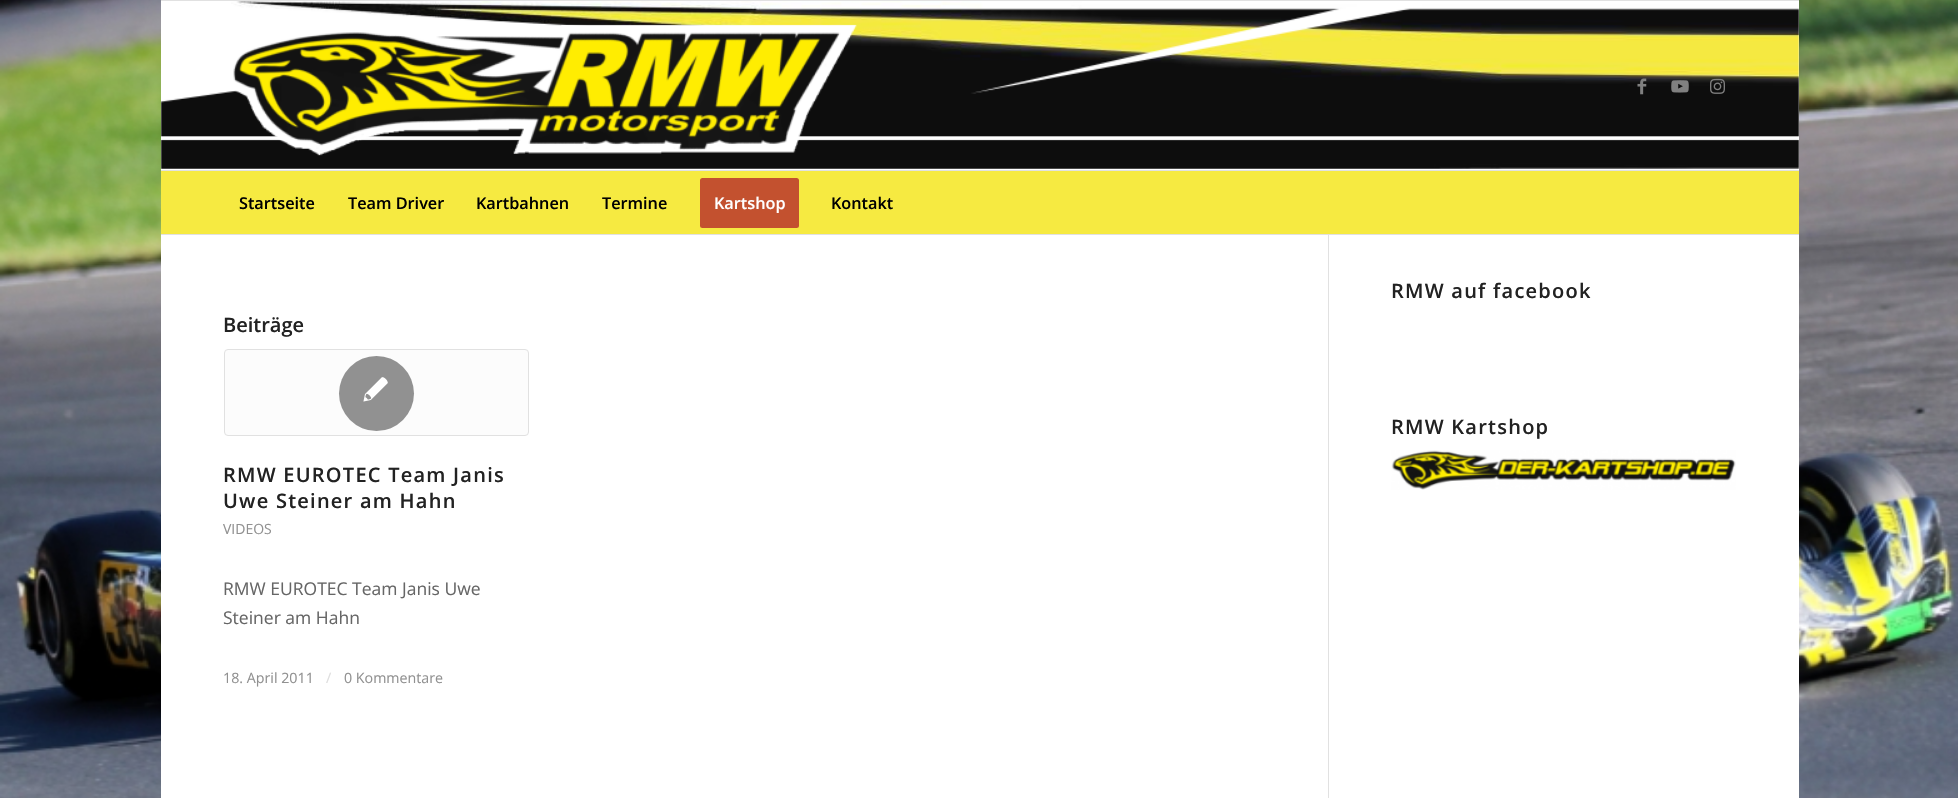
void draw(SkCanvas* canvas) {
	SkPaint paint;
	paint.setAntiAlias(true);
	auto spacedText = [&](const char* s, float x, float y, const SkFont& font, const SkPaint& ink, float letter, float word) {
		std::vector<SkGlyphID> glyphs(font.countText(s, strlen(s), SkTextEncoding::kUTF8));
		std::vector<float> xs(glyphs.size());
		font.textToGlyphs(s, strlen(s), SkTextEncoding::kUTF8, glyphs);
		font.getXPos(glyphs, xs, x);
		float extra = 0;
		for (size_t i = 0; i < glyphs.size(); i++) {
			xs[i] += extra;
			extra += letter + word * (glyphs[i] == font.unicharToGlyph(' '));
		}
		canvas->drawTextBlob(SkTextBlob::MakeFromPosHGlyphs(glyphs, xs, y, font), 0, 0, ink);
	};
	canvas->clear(0xffffffff);
	canvas->drawImageRect(SkImages::DeferredFromEncodedData(SkData::MakeFromFileName("img1.png")), SkRect::MakeXYWH(0, 0, 1958, 798), SkSamplingOptions());
	paint.setColor(0xffffffff);
	canvas->drawRect(SkRect::MakeXYWH(161, 1, 1638, 797), paint);
	paint.setColor(0xfffcfcfc);
	canvas->drawRect(SkRect::MakeXYWH(161, 145, 1638, 25), paint);
	paint.setColor(0xf2ffffff);
	canvas->drawRect(SkRect::MakeXYWH(161, 145, 1638, 25), paint);
	canvas->drawImageRect(SkImages::DeferredFromEncodedData(SkData::MakeFromFileName("img2.png")), SkRect::MakeXYWH(161, 1, 1638, 168), SkSamplingOptions());
	paint.setColor(0xffe1e1e1);
	canvas->drawRect(SkRect::MakeXYWH(161, 0, 1638, 1), paint);
	canvas->drawRect(SkRect::MakeXYWH(161, 234, 1638, 1), paint);
	canvas->drawImageRect(SkImages::DeferredFromEncodedData(SkData::MakeFromFileName("img3.png")), SkRect::MakeXYWH(233, 24, 624, 132), SkSamplingOptions());
	canvas->drawImageRect(SkImages::DeferredFromEncodedData(SkData::MakeFromFileName("img4.png")), SkRect::MakeXYWH(1637, 78, 10, 17), SkSamplingOptions());
	canvas->drawImageRect(SkImages::DeferredFromEncodedData(SkData::MakeFromFileName("img5.png")), SkRect::MakeXYWH(1671, 80, 18, 13), SkSamplingOptions());
	canvas->drawImageRect(SkImages::DeferredFromEncodedData(SkData::MakeFromFileName("img6.png")), SkRect::MakeXYWH(1710, 78, 15, 16), SkSamplingOptions());
	paint.setColor(0xfff6ea41);
	canvas->drawRect(SkRect::MakeXYWH(161, 171, 1638, 63), paint);
	paint.setColor(0xffe1e1e1);
	canvas->drawRect(SkRect::MakeXYWH(161, 170, 1638, 1), paint);
	SkFont f1(fontMgr->matchFamilyStyle("Open Sans", SkFontStyle(600, SkFontStyle::kNormal_Width, SkFontStyle::kUpright_Slant)), 16.25);
	f1.setSubpixel(true);
	paint.setColor(0xff000000);
	canvas->drawString("Startseite", 239, 209, f1, paint);
	canvas->drawString("Team Driver", 348, 209, f1, paint);
	canvas->drawString("Kartbahnen", 476, 209, f1, paint);
	canvas->drawString("Termine", 602, 209, f1, paint);
	paint.setColor(0xffc3512f);
	canvas->drawRoundRect(SkRect::MakeXYWH(701.5, 179.5, 96, 47), 1, 1, paint);
	paint.setStroke(true);
	paint.setStrokeWidth(3);
	canvas->drawRoundRect(SkRect::MakeXYWH(701.5, 179.5, 96, 47), 1, 1, paint);
	paint.setStroke(false);
	paint.setColor(0xffffffff);
	canvas->drawString("Kartshop", 714, 209, f1, paint);
	paint.setColor(0xff000000);
	canvas->drawString("Kontakt", 831, 209, f1, paint);
	paint.setColor(0xffe1e1e1);
	canvas->drawRect(SkRect::MakeXYWH(1328, 235, 1, 563), paint);
	SkFont f2(fontMgr->matchFamilyStyle("Open Sans", SkFontStyle(600, SkFontStyle::kNormal_Width, SkFontStyle::kUpright_Slant)), 20);
	f2.setSubpixel(true);
	paint.setColor(0xff222222);
	canvas->drawString("Beiträge", 223, 332, f2, paint);
	paint.setColor(0xfffcfcfc);
	canvas->drawRoundRect(SkRect::MakeXYWH(224.5, 349.5, 304, 86), 3.5, 3.5, paint);
	paint.setStroke(true);
	paint.setStrokeWidth(1);
	paint.setColor(0xffe1e1e1);
	canvas->drawRoundRect(SkRect::MakeXYWH(224.5, 349.5, 304, 86), 3.5, 3.5, paint);
	paint.setStroke(false);
	paint.setColor(0xff919191);
	canvas->drawCircle(376.5, 393.5, 37.5, paint);
	canvas->drawImageRect(SkImages::DeferredFromEncodedData(SkData::MakeFromFileName("img7.png")), SkRect::MakeXYWH(363, 377, 25, 25), SkSamplingOptions());
	paint.setColor(0xff222222);
	spacedText("RMW EUROTEC Team Janis", 223, 482, f2, paint, 1.25, 0);
	spacedText("Uwe Steiner am Hahn", 223, 508, f2, paint, 1.25, 0);
	SkFont f3(fontMgr->matchFamilyStyle("Open Sans", SkFontStyle::Normal()), 14);
	f3.setSubpixel(true);
	paint.setColor(0xff919191);
	canvas->drawString("VIDEOS", 223, 534, f3, paint);
	SkFont f4(fontMgr->matchFamilyStyle("Open Sans", SkFontStyle::Normal()), 17.5);
	f4.setSubpixel(true);
	paint.setColor(0xff666666);
	canvas->drawString("RMW EUROTEC Team Janis Uwe", 223, 595, f4, paint);
	canvas->drawString("Steiner am Hahn", 223, 624, f4, paint);
	SkFont f5(fontMgr->matchFamilyStyle("Open Sans", SkFontStyle::Normal()), 14.25);
	f5.setSubpixel(true);
	paint.setColor(0xff919191);
	canvas->drawString("18. April 2011", 223, 683, f5, paint);
	paint.setColor(0xffdedede);
	canvas->drawString("/", 326, 683, f5, paint);
	paint.setColor(0xff919191);
	canvas->drawString("0 Kommentare", 344, 683, f5, paint);
	paint.setColor(0xff222222);
	spacedText("RMW auf facebook", 1391, 298, f2, paint, 1.25, 0);
	spacedText("RMW Kartshop", 1391, 434, f2, paint, 1.25, 0);
	canvas->drawImageRect(SkImages::DeferredFromEncodedData(SkData::MakeFromFileName("img8.png")), SkRect::MakeXYWH(1391, 450, 345, 40), SkSamplingOptions());
}
